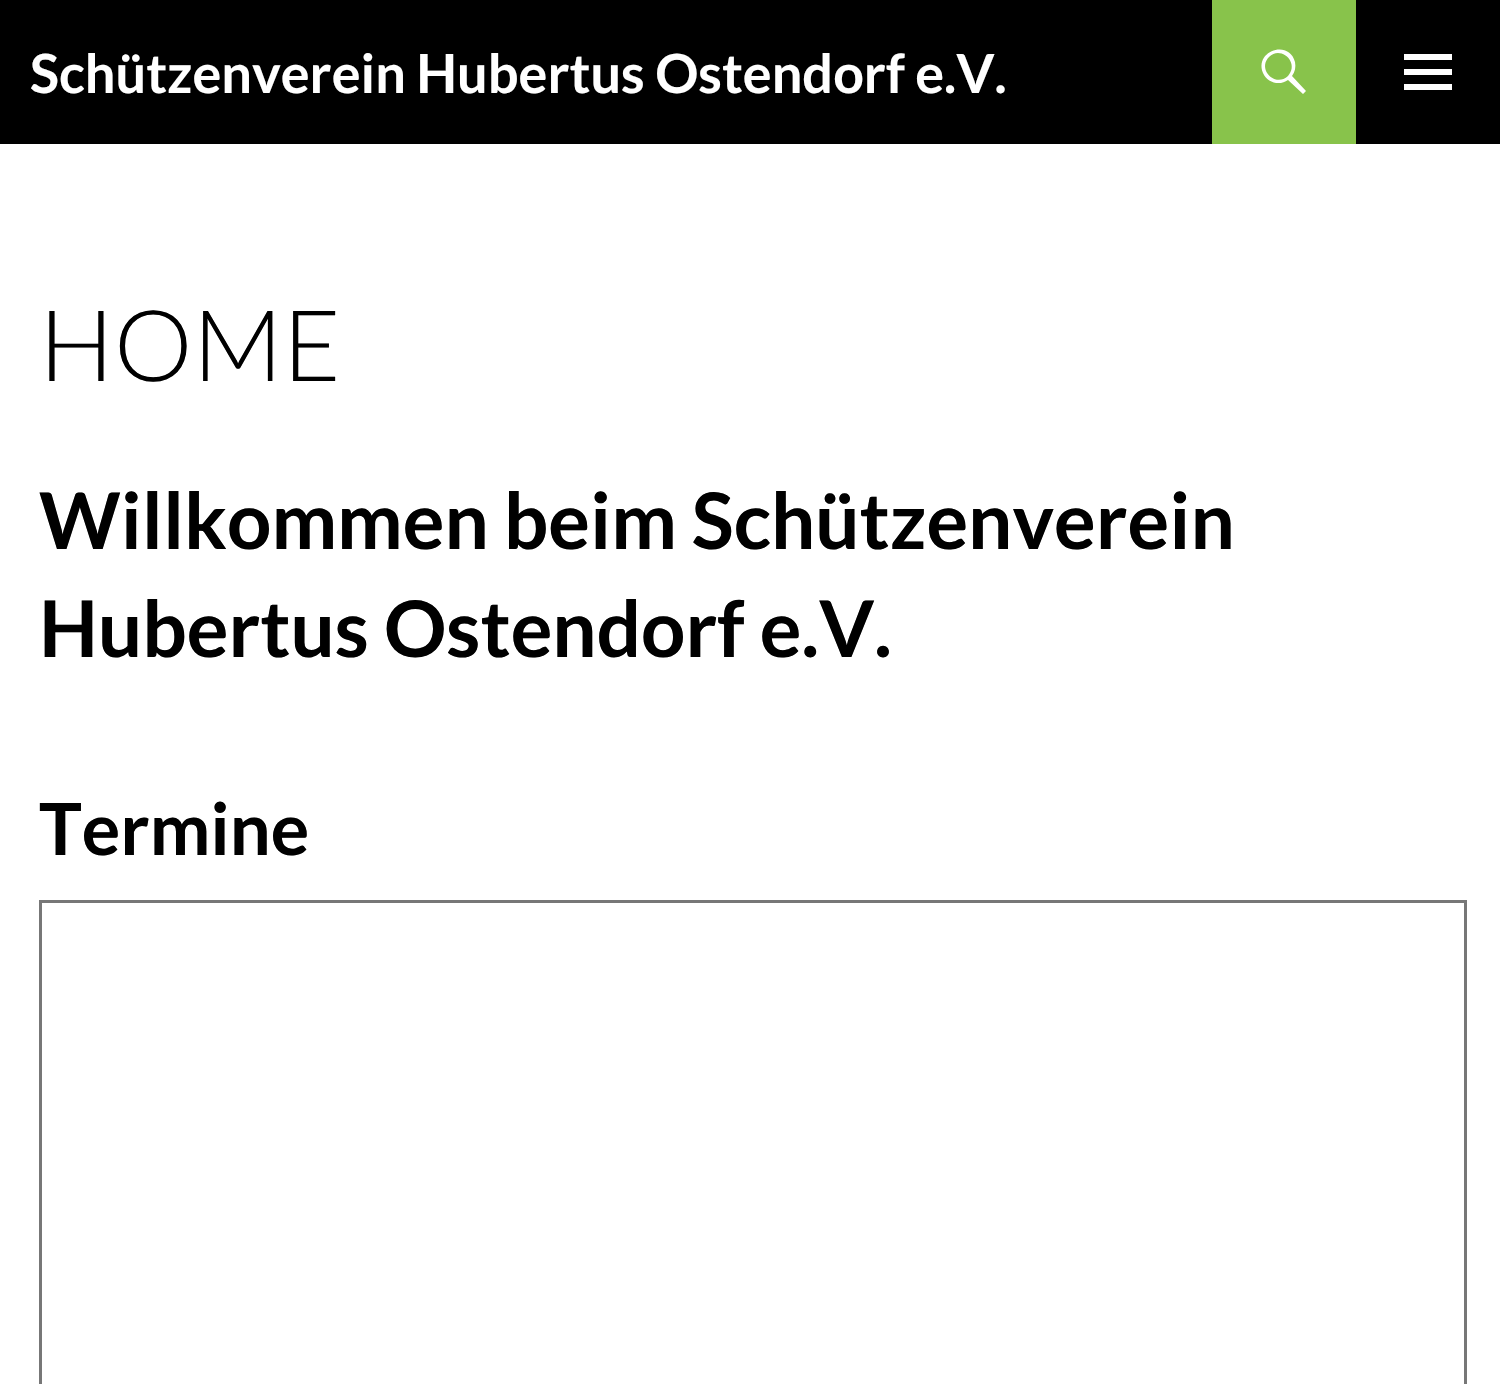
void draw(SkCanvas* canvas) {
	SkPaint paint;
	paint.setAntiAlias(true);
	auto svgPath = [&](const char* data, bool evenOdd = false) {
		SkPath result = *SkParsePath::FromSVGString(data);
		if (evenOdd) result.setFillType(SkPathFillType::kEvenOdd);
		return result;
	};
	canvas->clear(0xffffffff);
	paint.setColor(0xff000000);
	canvas->drawRect(SkRect::MakeXYWH(0, 0, 1500, 144), paint);
	SkFont f1(fontMgr->matchFamilyStyle("Lato", SkFontStyle::Bold()), 54);
	f1.setSubpixel(true);
	paint.setColor(0xffffffff);
	canvas->drawString("Schützenverein Hubertus Ostendorf e.V.", 30, 93, f1, paint);
	paint.setColor(0xff88c34b);
	canvas->drawRect(SkRect::MakeXYWH(1212, 0, 144, 144), paint);
	paint.setColor(0xffffffff);
	canvas->drawPath(svgPath("M1263 73C1254 51 1289 39 1295 62C1296 67 1295 72 1292 76L1306 91L1303 94L1288 80C1280 86 1267 83 1263 73ZM1269 57C1257 69 1275 88 1288 76C1300 63 1281 45 1269 57Z"), paint);
	canvas->drawPath(svgPath("M1404 90V84H1452V90ZM1404 75V69H1452V75ZM1404 60V54H1452V60Z"), paint);
	SkFont f2(fontMgr->matchFamilyStyle("Lato", SkFontStyle(300, SkFontStyle::kNormal_Width, SkFontStyle::kUpright_Slant)), 99);
	f2.setSubpixel(true);
	paint.setColor(0xff000000);
	canvas->drawString("HOME", 39, 381, f2, paint);
	SkFont f3(fontMgr->matchFamilyStyle("Lato", SkFontStyle::Bold()), 78);
	f3.setSubpixel(true);
	canvas->drawString("Willkommen beim Schützenverein", 39, 549, f3, paint);
	canvas->drawString("Hubertus Ostendorf e.V.", 39, 657, f3, paint);
	SkFont f4(fontMgr->matchFamilyStyle("Lato", SkFontStyle::Bold()), 72);
	f4.setSubpixel(true);
	canvas->drawString("Termine", 39, 855, f4, paint);
	paint.setStroke(true);
	paint.setStrokeWidth(3);
	paint.setColor(0xff777777);
	canvas->drawRect(SkRect::MakeXYWH(40.5, 901.5, 1425, 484), paint);
}
